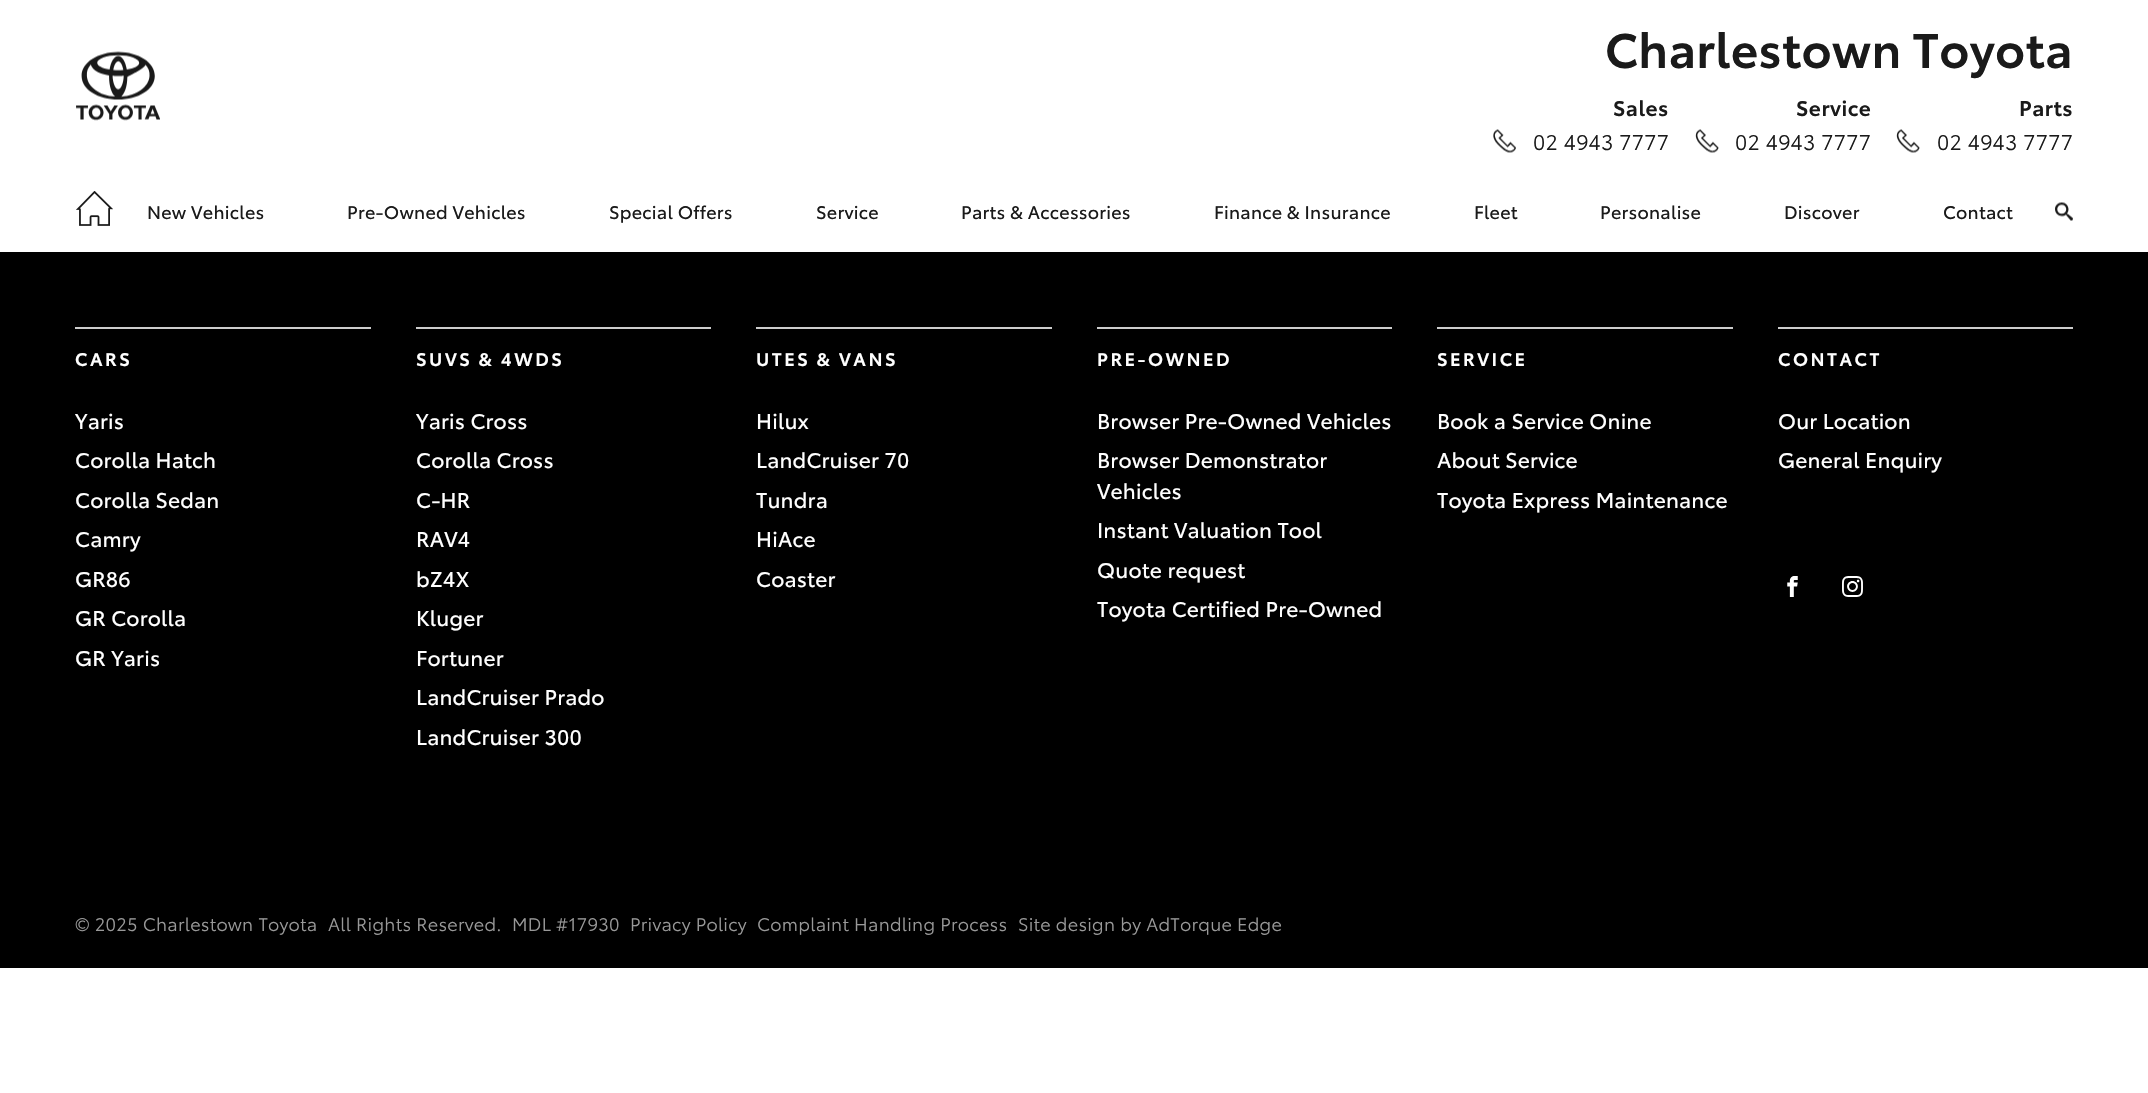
void draw(SkCanvas* canvas) {
	SkPaint paint;
	paint.setAntiAlias(true);
	auto spacedText = [&](const char* s, float x, float y, const SkFont& font, const SkPaint& ink, float letter, float word) {
		std::vector<SkGlyphID> glyphs(font.countText(s, strlen(s), SkTextEncoding::kUTF8));
		std::vector<float> xs(glyphs.size());
		font.textToGlyphs(s, strlen(s), SkTextEncoding::kUTF8, glyphs);
		font.getXPos(glyphs, xs, x);
		float extra = 0;
		for (size_t i = 0; i < glyphs.size(); i++) {
			xs[i] += extra;
			extra += letter + word * (glyphs[i] == font.unicharToGlyph(' '));
		}
		canvas->drawTextBlob(SkTextBlob::MakeFromPosHGlyphs(glyphs, xs, y, font), 0, 0, ink);
	};
	canvas->clear(0xffffffff);
	canvas->drawImageRect(SkImages::DeferredFromEncodedData(SkData::MakeFromFileName("img1.png")), SkRect::MakeXYWH(76, 51, 84, 70), SkSamplingOptions());
	SkFont f1(fontMgr->matchFamilyStyle("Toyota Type", SkFontStyle(600, SkFontStyle::kNormal_Width, SkFontStyle::kUpright_Slant)), 48);
	f1.setSubpixel(true);
	paint.setColor(0xff1a1a1a);
	spacedText("Charlestown Toyota", 1605, 68, f1, paint, 0.25, 0);
	canvas->drawImageRect(SkImages::DeferredFromEncodedData(SkData::MakeFromFileName("img2.png")), SkRect::MakeXYWH(1493, 129, 23, 24), SkSamplingOptions());
	SkFont f2(fontMgr->matchFamilyStyle("Toyota Type", SkFontStyle(600, SkFontStyle::kNormal_Width, SkFontStyle::kUpright_Slant)), 21);
	f2.setSubpixel(true);
	spacedText("Sales", 1613, 116, f2, paint, 0.5, 0);
	SkFont f3(fontMgr->matchFamilyStyle("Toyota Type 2", SkFontStyle::Normal()), 21);
	f3.setSubpixel(true);
	spacedText("02 4943 7777", 1533, 150, f3, paint, 0.25, 0);
	canvas->drawImageRect(SkImages::DeferredFromEncodedData(SkData::MakeFromFileName("img3.png")), SkRect::MakeXYWH(1695, 129, 24, 24), SkSamplingOptions());
	spacedText("Service", 1796, 116, f2, paint, 0.5, 0);
	spacedText("02 4943 7777", 1735, 150, f3, paint, 0.25, 0);
	canvas->drawImageRect(SkImages::DeferredFromEncodedData(SkData::MakeFromFileName("img3.png")), SkRect::MakeXYWH(1896, 129, 24, 24), SkSamplingOptions());
	spacedText("Parts", 2019, 116, f2, paint, 0.5, 0);
	spacedText("02 4943 7777", 1937, 150, f3, paint, 0.25, 0);
	canvas->drawImageRect(SkImages::DeferredFromEncodedData(SkData::MakeFromFileName("img4.png")), SkRect::MakeXYWH(76, 191, 37, 35), SkSamplingOptions());
	SkFont f4(fontMgr->matchFamilyStyle("ToyotaType", SkFontStyle::Normal()), 18);
	f4.setSubpixel(true);
	spacedText("New Vehicles", 147, 219, f4, paint, 0.25, 0);
	spacedText("Pre-Owned Vehicles", 347, 219, f4, paint, 0.25, 0);
	spacedText("Special Offers", 609, 219, f4, paint, 0.25, 0);
	spacedText("Service", 816, 219, f4, paint, 0.25, 0);
	spacedText("Parts & Accessories", 961, 219, f4, paint, 0.25, 0);
	spacedText("Finance & Insurance", 1214, 219, f4, paint, 0.25, 0);
	spacedText("Fleet", 1474, 219, f4, paint, 0.25, 0);
	spacedText("Personalise", 1600, 219, f4, paint, 0.25, 0);
	spacedText("Discover", 1784, 219, f4, paint, 0.25, 0);
	spacedText("Contact", 1943, 219, f4, paint, 0.25, 0);
	canvas->drawImageRect(SkImages::DeferredFromEncodedData(SkData::MakeFromFileName("img5.png")), SkRect::MakeXYWH(2055, 202, 18, 19), SkSamplingOptions());
	paint.setColor(0xff000000);
	canvas->drawRect(SkRect::MakeXYWH(0, 252, 2148, 716), paint);
	paint.setColor(0xffcccccc);
	canvas->drawRect(SkRect::MakeXYWH(75, 327, 296, 2), paint);
	SkFont f5(fontMgr->matchFamilyStyle("Toyota Type", SkFontStyle(600, SkFontStyle::kNormal_Width, SkFontStyle::kUpright_Slant)), 18);
	f5.setSubpixel(true);
	paint.setColor(0xffffffff);
	spacedText("CARS", 75, 366, f5, paint, 2.5, 0);
	SkFont f6(fontMgr->matchFamilyStyle("ToyotaType", SkFontStyle::Normal()), 21);
	f6.setSubpixel(true);
	spacedText("Yaris", 75, 429, f6, paint, 0.2, 0);
	spacedText("Corolla Hatch", 75, 468, f6, paint, 0.2, 0);
	spacedText("Corolla Sedan", 75, 508, f6, paint, 0.2, 0);
	spacedText("Camry", 75, 547, f6, paint, 0.2, 0);
	spacedText("GR86", 75, 587, f6, paint, 0.2, 0);
	spacedText("GR Corolla", 75, 626, f6, paint, 0.2, 0);
	spacedText("GR Yaris", 75, 666, f6, paint, 0.2, 0);
	paint.setColor(0xffcccccc);
	canvas->drawRect(SkRect::MakeXYWH(416, 327, 295, 2), paint);
	paint.setColor(0xffffffff);
	spacedText("SUVS & 4WDS", 416, 366, f5, paint, 2.5, 0);
	spacedText("Yaris Cross", 416, 429, f6, paint, 0.2, 0);
	spacedText("Corolla Cross", 416, 468, f6, paint, 0.2, 0);
	spacedText("C-HR", 416, 508, f6, paint, 0.2, 0);
	spacedText("RAV4", 416, 547, f6, paint, 0.2, 0);
	spacedText("bZ4X", 416, 587, f6, paint, 0.2, 0);
	spacedText("Kluger", 416, 626, f6, paint, 0.2, 0);
	spacedText("Fortuner", 416, 666, f6, paint, 0.2, 0);
	spacedText("LandCruiser Prado", 416, 705, f6, paint, 0.2, 0);
	spacedText("LandCruiser 300", 416, 745, f6, paint, 0.2, 0);
	paint.setColor(0xffcccccc);
	canvas->drawRect(SkRect::MakeXYWH(756, 327, 296, 2), paint);
	paint.setColor(0xffffffff);
	spacedText("UTES & VANS", 756, 366, f5, paint, 2.5, 0);
	spacedText("Hilux", 756, 429, f6, paint, 0.2, 0);
	spacedText("LandCruiser 70", 756, 468, f6, paint, 0.2, 0);
	spacedText("Tundra", 756, 508, f6, paint, 0.2, 0);
	spacedText("HiAce", 756, 547, f6, paint, 0.2, 0);
	spacedText("Coaster", 756, 587, f6, paint, 0.2, 0);
	paint.setColor(0xffcccccc);
	canvas->drawRect(SkRect::MakeXYWH(1097, 327, 295, 2), paint);
	paint.setColor(0xffffffff);
	spacedText("PRE-OWNED", 1097, 366, f5, paint, 2.5, 0);
	spacedText("Browser Pre-Owned Vehicles", 1097, 429, f6, paint, 0.2, 0);
	spacedText("Browser Demonstrator", 1097, 468, f6, paint, 0.2, 0);
	spacedText("Vehicles", 1097, 499, f6, paint, 0.2, 0);
	spacedText("Instant Valuation Tool", 1097, 538, f6, paint, 0.2, 0);
	spacedText("Quote request", 1097, 578, f6, paint, 0.2, 0);
	spacedText("Toyota Certified Pre-Owned", 1097, 617, f6, paint, 0.2, 0);
	paint.setColor(0xffcccccc);
	canvas->drawRect(SkRect::MakeXYWH(1437, 327, 296, 2), paint);
	paint.setColor(0xffffffff);
	spacedText("SERVICE", 1437, 366, f5, paint, 2.5, 0);
	spacedText("Book a Service Onine", 1437, 429, f6, paint, 0.2, 0);
	spacedText("About Service", 1437, 468, f6, paint, 0.2, 0);
	spacedText("Toyota Express Maintenance", 1437, 508, f6, paint, 0.2, 0);
	paint.setColor(0xffcccccc);
	canvas->drawRect(SkRect::MakeXYWH(1778, 327, 295, 2), paint);
	paint.setColor(0xffffffff);
	spacedText("CONTACT", 1778, 366, f5, paint, 2.5, 0);
	spacedText("Our Location", 1778, 429, f6, paint, 0.2, 0);
	spacedText("General Enquiry", 1778, 468, f6, paint, 0.2, 0);
	canvas->drawImageRect(SkImages::DeferredFromEncodedData(SkData::MakeFromFileName("img6.png")), SkRect::MakeXYWH(1787, 576, 11, 21), SkSamplingOptions());
	canvas->drawImageRect(SkImages::DeferredFromEncodedData(SkData::MakeFromFileName("img7.png")), SkRect::MakeXYWH(1842, 576, 21, 21), SkSamplingOptions());
	SkFont f7(fontMgr->matchFamilyStyle("Toyota Type 2", SkFontStyle::Normal()), 18);
	f7.setSubpixel(true);
	paint.setColor(0xff999999);
	spacedText("© 2025 Charlestown Toyota", 75, 931, f7, paint, 0.25, 0);
	spacedText("All Rights Reserved.", 328, 931, f7, paint, 0.25, 0);
	spacedText("MDL #17930", 512, 931, f7, paint, 0.25, 0);
	spacedText("Privacy Policy", 630, 931, f7, paint, 0.25, 0);
	spacedText("Complaint Handling Process", 757, 931, f7, paint, 0.25, 0);
	spacedText("Site design by AdTorque Edge", 1018, 931, f7, paint, 0.25, 0);
}
